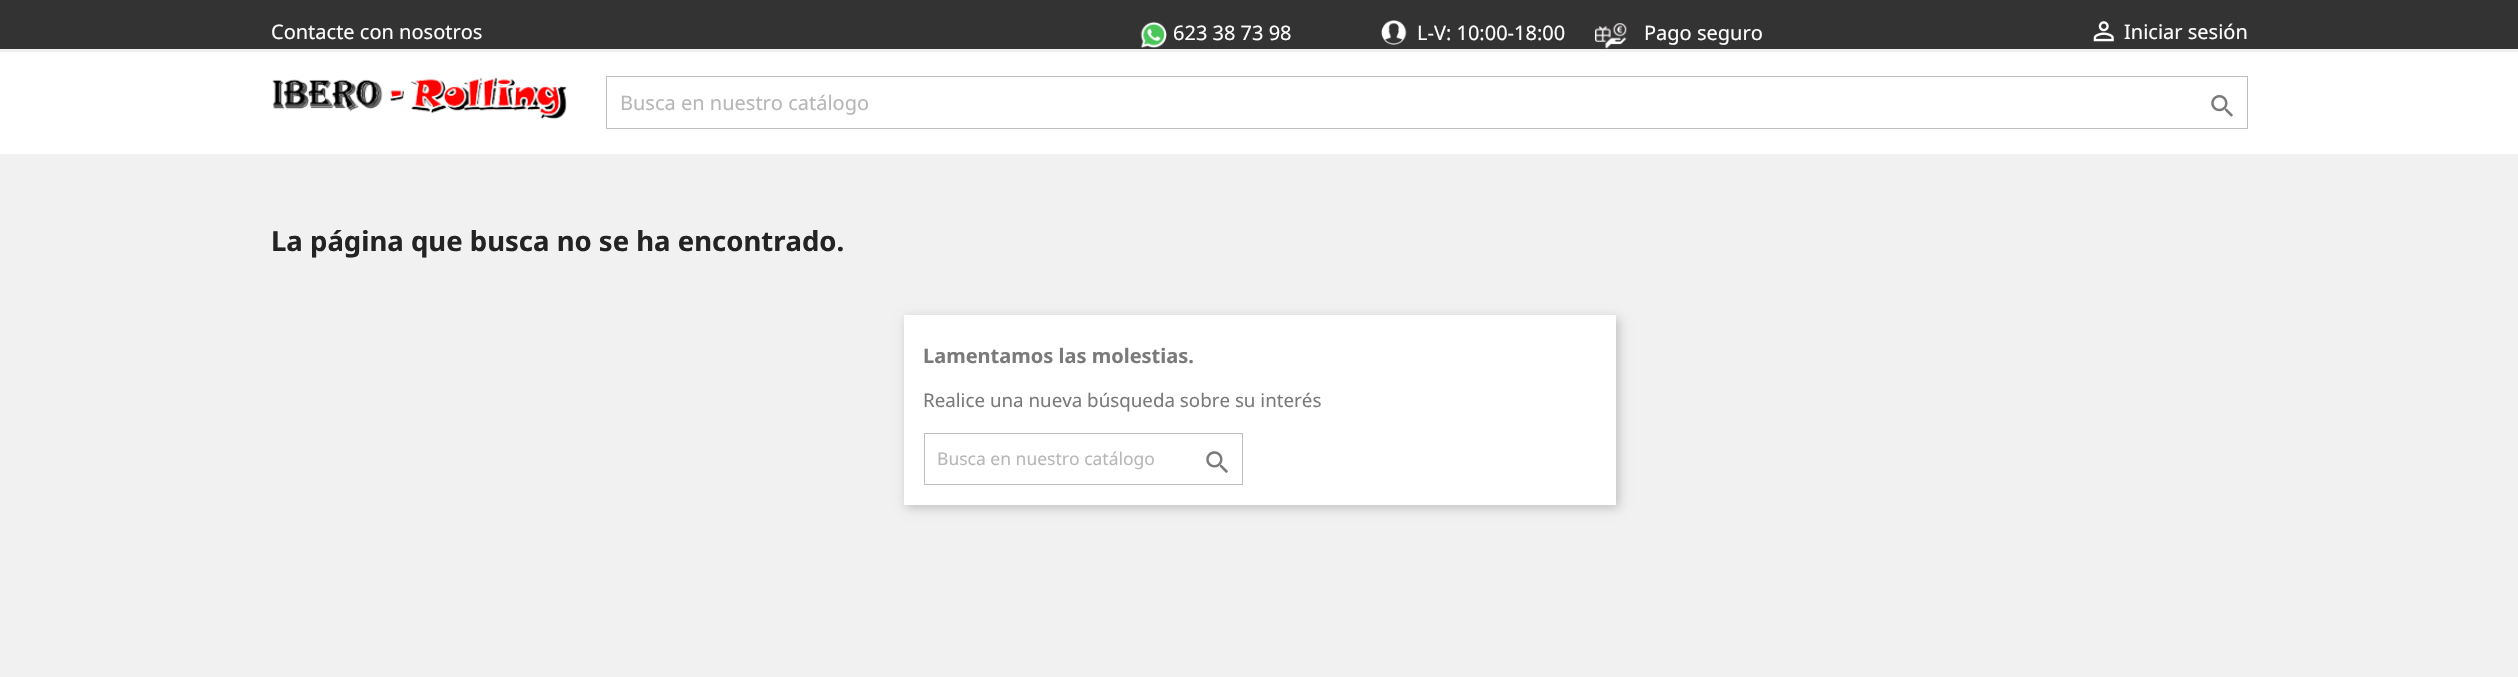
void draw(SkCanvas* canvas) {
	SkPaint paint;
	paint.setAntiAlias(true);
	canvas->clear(0xffffffff);
	paint.setColor(0xff333333);
	canvas->drawRect(SkRect::MakeXYWH(0, 0, 2518, 49), paint);
	paint.setColor(0xfff1f1f1);
	canvas->drawRect(SkRect::MakeXYWH(0, 49, 2518, 3), paint);
	SkFont f1(fontMgr->matchFamilyStyle("Noto Sans", SkFontStyle::Normal()), 20);
	f1.setSubpixel(true);
	paint.setColor(0xffffffff);
	canvas->drawString("Contacte con nosotros", 271, 39, f1, paint);
	canvas->drawImageRect(SkImages::DeferredFromEncodedData(SkData::MakeFromFileName("img1.png")), SkRect::MakeXYWH(1140, 21, 27, 27), SkSamplingOptions());
	canvas->drawString("623 38 73 98", 1173, 40, f1, paint);
	canvas->drawImageRect(SkImages::DeferredFromEncodedData(SkData::MakeFromFileName("img2.png")), SkRect::MakeXYWH(1381, 20, 26, 25), SkSamplingOptions());
	canvas->drawString("L-V: 10:00-18:00", 1417, 40, f1, paint);
	canvas->drawImageRect(SkImages::DeferredFromEncodedData(SkData::MakeFromFileName("img3.png")), SkRect::MakeXYWH(1595, 23, 32, 26), SkSamplingOptions());
	canvas->drawString("Pago seguro", 1644, 40, f1, paint);
	canvas->drawImageRect(SkImages::DeferredFromEncodedData(SkData::MakeFromFileName("img4.png")), SkRect::MakeXYWH(2093, 21, 21, 21), SkSamplingOptions());
	canvas->drawString("Iniciar sesión", 2124, 39, f1, paint);
	canvas->drawImageRect(SkImages::DeferredFromEncodedData(SkData::MakeFromFileName("img5.png")), SkRect::MakeXYWH(272, 77, 295, 42), SkSamplingOptions());
	paint.setStroke(true);
	paint.setStrokeWidth(1);
	paint.setColor(0xffbfbfbf);
	canvas->drawRect(SkRect::MakeXYWH(606.5, 76.5, 1641, 52), paint);
	paint.setStroke(false);
	paint.setColor(0xffb7b7b7);
	canvas->drawString("Busca en nuestro catálogo", 620, 110, f1, paint);
	canvas->drawImageRect(SkImages::DeferredFromEncodedData(SkData::MakeFromFileName("img6.png")), SkRect::MakeXYWH(2211, 95, 22, 22), SkSamplingOptions());
	paint.setColor(0xfff1f1f1);
	canvas->drawRect(SkRect::MakeXYWH(0, 154, 2518, 523), paint);
	SkFont f2(fontMgr->matchFamilyStyle("Noto Sans", SkFontStyle::Bold()), 27.5);
	f2.setSubpixel(true);
	paint.setColor(0xff232323);
	canvas->drawString("La página que busca no se ha encontrado.", 271, 251, f2, paint);
	paint.setColor(0x33000000);
	paint.setMaskFilter(SkMaskFilter::MakeBlur(kNormal_SkBlurStyle, 5));
	canvas->drawRect(SkRect::MakeXYWH(906, 318, 713, 190), paint);
	paint.setMaskFilter(nullptr);
	paint.setColor(0xffffffff);
	canvas->drawRect(SkRect::MakeXYWH(904, 315, 712, 190), paint);
	SkFont f3(fontMgr->matchFamilyStyle("Noto Sans", SkFontStyle::Bold()), 20);
	f3.setSubpixel(true);
	paint.setColor(0xff7a7a7a);
	canvas->drawString("Lamentamos las molestias.", 923, 363, f3, paint);
	SkFont f4(fontMgr->matchFamilyStyle("Noto Sans", SkFontStyle::Normal()), 18.75);
	f4.setSubpixel(true);
	canvas->drawString("Realice una nueva búsqueda sobre su interés", 923, 407, f4, paint);
	paint.setStroke(true);
	paint.setColor(0xffbfbfbf);
	canvas->drawRect(SkRect::MakeXYWH(924.5, 433.5, 318, 51), paint);
	SkFont f5(fontMgr->matchFamilyStyle("Noto Sans", SkFontStyle::Normal()), 17.5);
	f5.setSubpixel(true);
	paint.setStroke(false);
	paint.setColor(0xffb7b7b7);
	canvas->drawString("Busca en nuestro catálogo", 937, 465, f5, paint);
	canvas->drawImageRect(SkImages::DeferredFromEncodedData(SkData::MakeFromFileName("img7.png")), SkRect::MakeXYWH(1206, 451, 22, 22), SkSamplingOptions());
}
